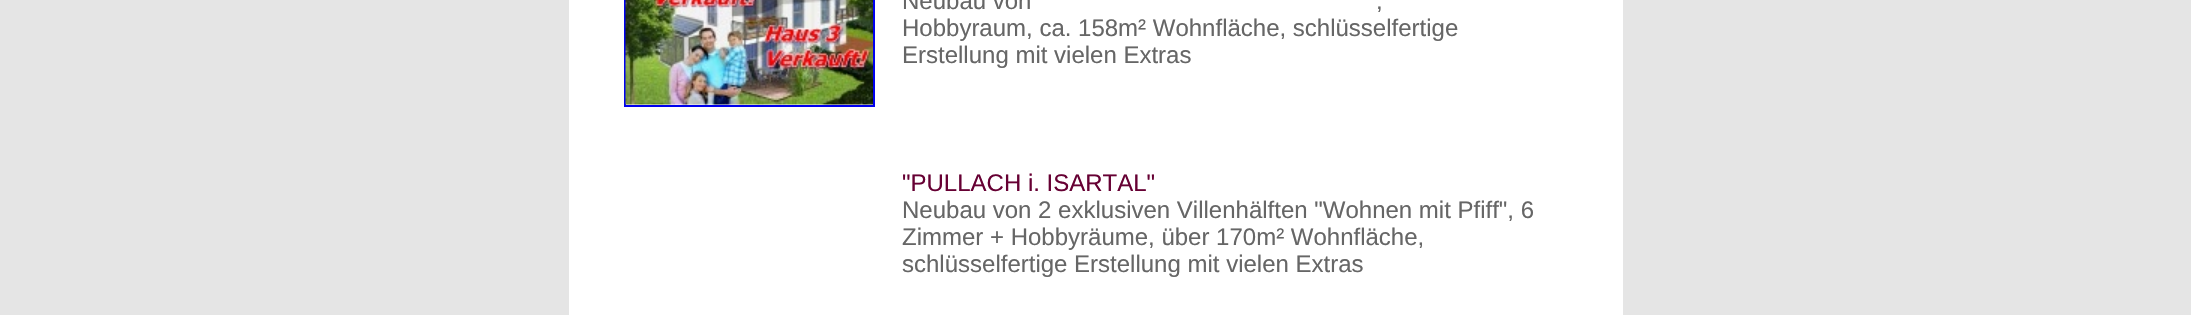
void draw(SkCanvas* canvas) {
	SkPaint paint;
	paint.setAntiAlias(true);
	canvas->clear(0xffe5e5e5);
	paint.setColor(0xffffffff);
	canvas->drawRect(SkRect::MakeXYWH(569, 0, 1054, 315), paint);
	paint.setStroke(true);
	paint.setStrokeWidth(2);
	paint.setColor(0xff0000ee);
	canvas->drawRect(SkRect::MakeXYWH(625, -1, 249, 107), paint);
	canvas->drawImageRect(SkImages::DeferredFromEncodedData(SkData::MakeFromFileName("img1.png")), SkRect::MakeXYWH(625, 0, 248, 105), SkSamplingOptions());
	SkFont f1(fontMgr->matchFamilyStyle("Liberation Sans", SkFontStyle::Normal()), 24);
	f1.setSubpixel(true);
	paint.setStroke(false);
	paint.setColor(0xff666666);
	canvas->drawString("Neubau von", 902, 9, f1, paint);
	canvas->drawString(",", 1376, 9, f1, paint);
	canvas->drawString("Hobbyraum, ca. 158m² Wohnfläche, schlüsselfertige", 902, 36, f1, paint);
	canvas->drawString("Erstellung mit vielen Extras", 902, 63, f1, paint);
	paint.setColor(0xff660033);
	canvas->drawString("\"PULLACH i. ISARTAL\"", 902, 191, f1, paint);
	paint.setColor(0xff666666);
	canvas->drawString("Neubau von 2 exklusiven Villenhälften \"Wohnen mit Pfiff\", 6", 902, 218, f1, paint);
	canvas->drawString("Zimmer + Hobbyräume, über 170m² Wohnfläche,", 902, 245, f1, paint);
	canvas->drawString("schlüsselfertige Erstellung mit vielen Extras", 902, 272, f1, paint);
}
